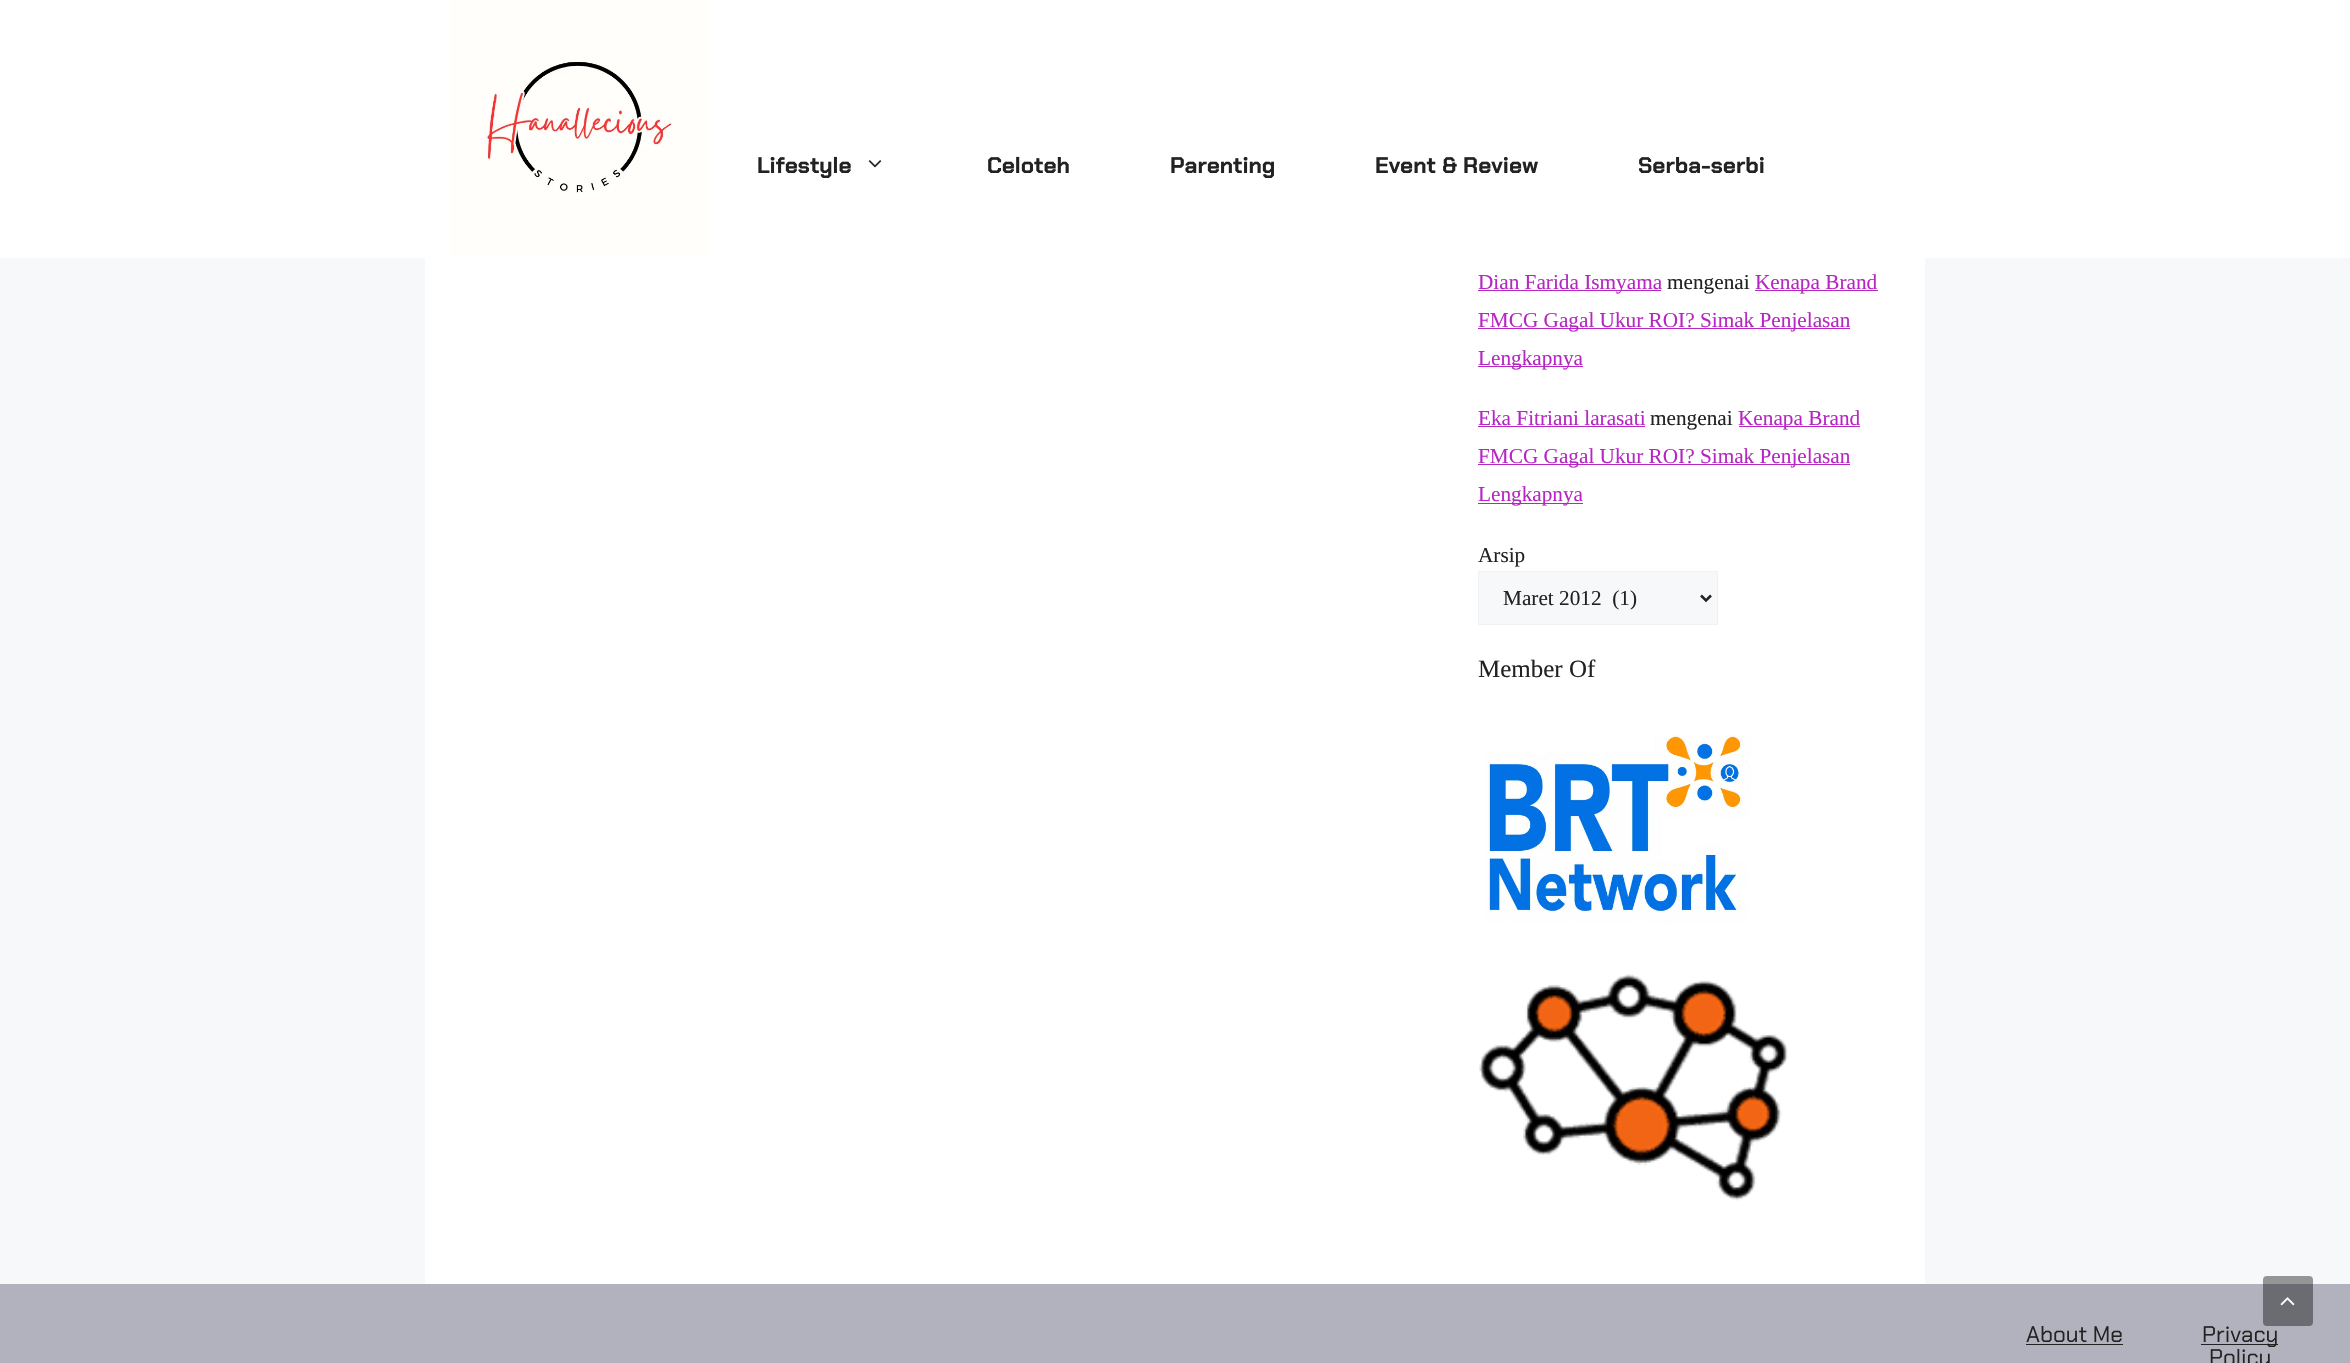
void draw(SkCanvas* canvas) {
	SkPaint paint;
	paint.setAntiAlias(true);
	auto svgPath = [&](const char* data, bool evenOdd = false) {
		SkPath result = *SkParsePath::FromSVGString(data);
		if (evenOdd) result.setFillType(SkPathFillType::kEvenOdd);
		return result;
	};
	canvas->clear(0xfff7f8f9);
	paint.setColor(0xffffffff);
	canvas->drawRect(SkRect::MakeXYWH(0, 0, 2350, 258), paint);
	canvas->drawImageRect(SkImages::DeferredFromEncodedData(SkData::MakeFromFileName("img1.png")), SkRect::MakeXYWH(450, 0, 257, 257), SkSamplingOptions());
	SkFont f1(fontMgr->matchFamilyStyle("Chakra Petch", SkFontStyle::Bold()), 22.5);
	f1.setSubpixel(true);
	paint.setColor(0xff222222);
	canvas->drawString("Lifestyle", 757, 173, f1, paint);
	canvas->drawImageRect(SkImages::DeferredFromEncodedData(SkData::MakeFromFileName("img2.png")), SkRect::MakeXYWH(868, 160, 14, 8), SkSamplingOptions());
	canvas->drawString("Celoteh", 987, 173, f1, paint);
	canvas->drawString("Parenting", 1170, 173, f1, paint);
	canvas->drawString("Event & Review", 1375, 173, f1, paint);
	canvas->drawString("Serba-serbi", 1638, 173, f1, paint);
	paint.setColor(0xffffffff);
	canvas->drawRect(SkRect::MakeXYWH(425, 258, 1500, 1026), paint);
	paint.setColor(0xffb626c2);
	canvas->drawRect(SkRect::MakeXYWH(1478, 290, 183, 1), paint);
	SkFont f2(fontMgr->matchFamilyStyle("Liberation Serif", SkFontStyle::Normal()), 21.25);
	f2.setSubpixel(true);
	canvas->drawString("Dian Farida Ismyama", 1478, 289, f2, paint);
	paint.setColor(0xff222222);
	canvas->drawString("mengenai", 1667, 289, f2, paint);
	paint.setColor(0xffb626c2);
	canvas->drawRect(SkRect::MakeXYWH(1755, 290, 123, 1), paint);
	canvas->drawString("Kenapa Brand", 1755, 289, f2, paint);
	canvas->drawRect(SkRect::MakeXYWH(1478, 328, 372, 1), paint);
	canvas->drawString("FMCG Gagal Ukur ROI? Simak Penjelasan", 1478, 327, f2, paint);
	canvas->drawRect(SkRect::MakeXYWH(1478, 366, 105, 1), paint);
	canvas->drawString("Lengkapnya", 1478, 365, f2, paint);
	canvas->drawString("Eka Fitriani larasati", 1478, 425, f2, paint);
	canvas->drawRect(SkRect::MakeXYWH(1478, 426, 167, 1), paint);
	paint.setColor(0xff222222);
	canvas->drawString("mengenai", 1650, 425, f2, paint);
	paint.setColor(0xffb626c2);
	canvas->drawRect(SkRect::MakeXYWH(1739, 426, 121, 1), paint);
	canvas->drawString("Kenapa Brand", 1738, 425, f2, paint);
	canvas->drawRect(SkRect::MakeXYWH(1478, 464, 372, 1), paint);
	canvas->drawString("FMCG Gagal Ukur ROI? Simak Penjelasan", 1478, 463, f2, paint);
	canvas->drawRect(SkRect::MakeXYWH(1478, 503, 105, 1), paint);
	canvas->drawString("Lengkapnya", 1478, 501, f2, paint);
	paint.setColor(0xff222222);
	canvas->drawString("Arsip", 1478, 562, f2, paint);
	paint.setColor(0xfff7f8f9);
	canvas->drawRect(SkRect::MakeXYWH(1478.5, 571.5, 239, 53), paint);
	paint.setStroke(true);
	paint.setStrokeWidth(1);
	paint.setColor(0xfff0f0f0);
	canvas->drawRect(SkRect::MakeXYWH(1478.5, 571.5, 239, 53), paint);
	paint.setStrokeWidth(2.5);
	paint.setColor(0xff222222);
	canvas->drawPath(svgPath("M1701 595.5L1706 600.5L1711 595.5"), paint);
	paint.setStroke(false);
	canvas->drawString("Maret 2012  (1)", 1503, 605, f2, paint);
	SkFont f3(fontMgr->matchFamilyStyle("Liberation Serif", SkFontStyle::Normal()), 25);
	f3.setSubpixel(true);
	canvas->drawString("Member Of", 1478, 677, f3, paint);
	canvas->drawImageRect(SkImages::DeferredFromEncodedData(SkData::MakeFromFileName("img3.png")), SkRect::MakeXYWH(1486, 735, 266, 188), SkSamplingOptions());
	canvas->drawImageRect(SkImages::DeferredFromEncodedData(SkData::MakeFromFileName("img4.png")), SkRect::MakeXYWH(1479, 974, 309, 227), SkSamplingOptions());
	paint.setColor(0xffb2b2be);
	canvas->drawRect(SkRect::MakeXYWH(0, 1284, 2350, 79), paint);
	paint.setColor(0x66000000);
	canvas->drawRoundRect(SkRect::MakeXYWH(2263, 1276, 50, 50), 4, 4, paint);
	canvas->drawImageRect(SkImages::DeferredFromEncodedData(SkData::MakeFromFileName("img5.png")), SkRect::MakeXYWH(2280, 1297, 15, 9), SkSamplingOptions());
	SkFont f4(fontMgr->matchFamilyStyle("Chakra Petch", SkFontStyle::Normal()), 22.5);
	f4.setSubpixel(true);
	paint.setColor(0xff222222);
	canvas->drawString("About Me", 2026, 1342, f4, paint);
	canvas->drawRect(SkRect::MakeXYWH(2026, 1344, 97, 1), paint);
	canvas->drawRect(SkRect::MakeXYWH(2201, 1344, 77, 1), paint);
	canvas->drawString("Privacy", 2202, 1342, f4, paint);
	canvas->drawString("Policy", 2209, 1365, f4, paint);
}
